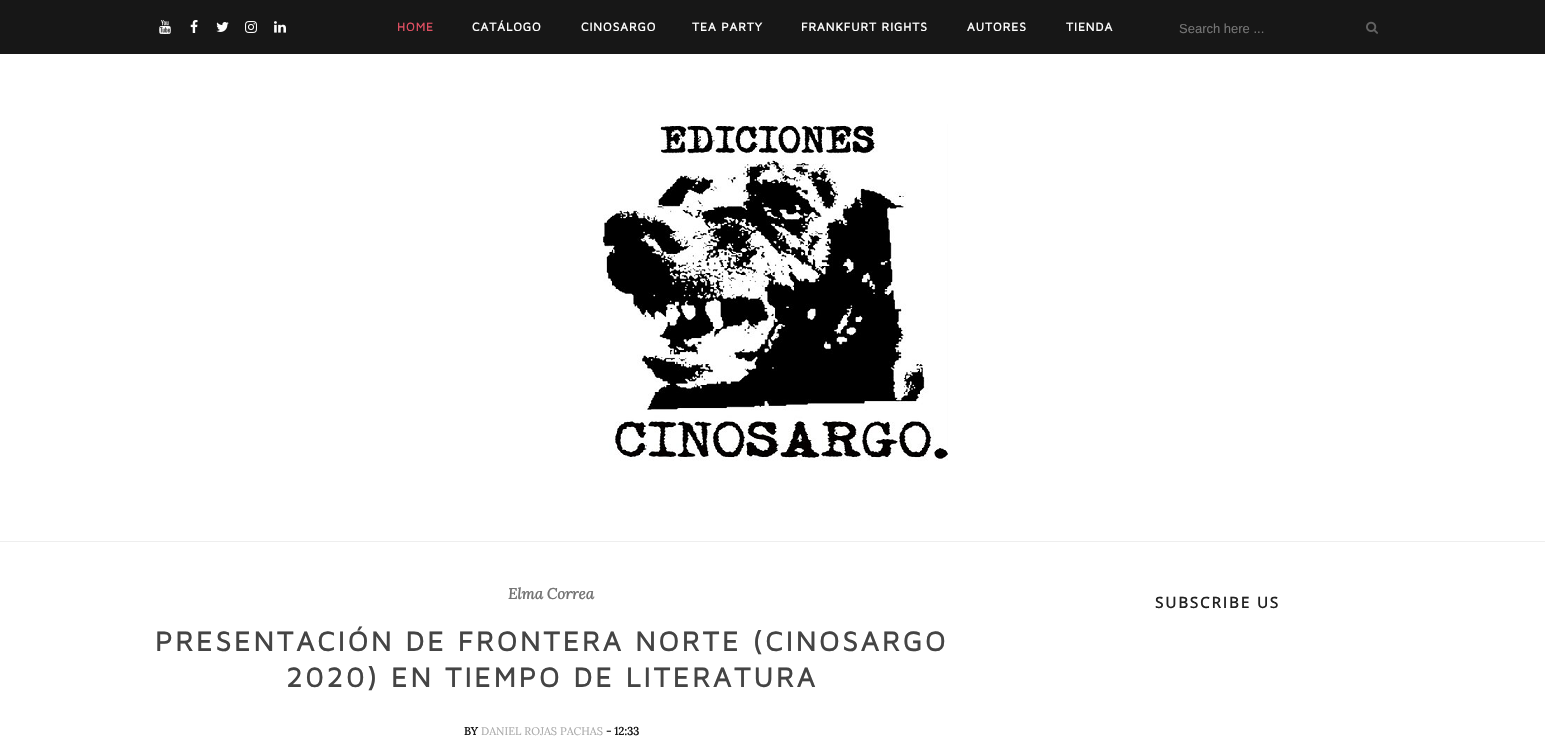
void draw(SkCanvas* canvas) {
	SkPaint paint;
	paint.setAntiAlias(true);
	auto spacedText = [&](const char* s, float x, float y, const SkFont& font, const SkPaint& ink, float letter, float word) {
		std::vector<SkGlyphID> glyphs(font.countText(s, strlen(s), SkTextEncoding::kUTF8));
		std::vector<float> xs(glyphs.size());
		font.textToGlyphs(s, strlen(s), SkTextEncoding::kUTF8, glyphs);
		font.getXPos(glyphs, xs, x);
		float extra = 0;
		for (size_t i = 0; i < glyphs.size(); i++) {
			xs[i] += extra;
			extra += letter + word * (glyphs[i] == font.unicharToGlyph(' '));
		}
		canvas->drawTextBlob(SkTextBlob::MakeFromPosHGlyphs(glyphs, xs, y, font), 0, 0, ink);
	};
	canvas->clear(0xffffffff);
	paint.setColor(0xff171717);
	canvas->drawRect(SkRect::MakeXYWH(0, 0, 1545, 54), paint);
	canvas->drawImageRect(SkImages::DeferredFromEncodedData(SkData::MakeFromFileName("img1.png")), SkRect::MakeXYWH(159, 20, 12, 14), SkSamplingOptions());
	canvas->drawImageRect(SkImages::DeferredFromEncodedData(SkData::MakeFromFileName("img2.png")), SkRect::MakeXYWH(190, 20, 8, 13), SkSamplingOptions());
	canvas->drawImageRect(SkImages::DeferredFromEncodedData(SkData::MakeFromFileName("img3.png")), SkRect::MakeXYWH(216, 22, 13, 10), SkSamplingOptions());
	canvas->drawImageRect(SkImages::DeferredFromEncodedData(SkData::MakeFromFileName("img4.png")), SkRect::MakeXYWH(245, 21, 12, 12), SkSamplingOptions());
	canvas->drawImageRect(SkImages::DeferredFromEncodedData(SkData::MakeFromFileName("img5.png")), SkRect::MakeXYWH(274, 21, 12, 12), SkSamplingOptions());
	SkFont f1(fontMgr->matchFamilyStyle("Maven Pro", SkFontStyle::Bold()), 12);
	f1.setSubpixel(true);
	paint.setColor(0xffe04f62);
	spacedText("HOME", 397, 31, f1, paint, 1, 0);
	paint.setColor(0xffffffff);
	spacedText("CATÁLOGO", 472, 31, f1, paint, 1, 0);
	spacedText("CINOSARGO", 581, 31, f1, paint, 1, 0);
	spacedText("TEA PARTY", 692, 31, f1, paint, 1, 0);
	spacedText("FRANKFURT RIGHTS", 801, 31, f1, paint, 1, 0);
	spacedText("AUTORES", 967, 31, f1, paint, 1, 0);
	spacedText("TIENDA", 1066, 31, f1, paint, 1, 0);
	SkFont f2(fontMgr->matchFamilyStyle("Liberation Sans", SkFontStyle::Normal()), 13);
	f2.setSubpixel(true);
	paint.setColor(0xff757575);
	canvas->drawString("Search here ...", 1179, 33, f2, paint);
	canvas->drawImageRect(SkImages::DeferredFromEncodedData(SkData::MakeFromFileName("img6.png")), SkRect::MakeXYWH(1366, 21, 12, 13), SkSamplingOptions());
	paint.setColor(0xffeeeeee);
	canvas->drawRect(SkRect::MakeXYWH(0, 541, 1545, 1), paint);
	canvas->drawImageRect(SkImages::DeferredFromEncodedData(SkData::MakeFromFileName("img7.png")), SkRect::MakeXYWH(602, 124, 346, 337), SkSamplingOptions());
	SkFont f3(fontMgr->matchFamilyStyle("Lora", SkFontStyle::BoldItalic()), 15);
	f3.setSubpixel(true);
	paint.setColor(0xff757575);
	canvas->drawString("Elma Correa", 508, 599, f3, paint);
	SkFont f4(fontMgr->matchFamilyStyle("Maven Pro", SkFontStyle::Bold()), 28);
	f4.setSubpixel(true);
	paint.setColor(0xff444444);
	spacedText("PRESENTACIÓN DE FRONTERA NORTE (CINOSARGO", 155, 651, f4, paint, 3.1, 0);
	spacedText("2020) EN TIEMPO DE LITERATURA", 286, 687, f4, paint, 3.1, 0);
	SkFont f5(fontMgr->matchFamilyStyle("Lora", SkFontStyle::Bold()), 11);
	f5.setSubpixel(true);
	paint.setColor(0xff171717);
	canvas->drawString("BY", 464, 735, f5, paint);
	SkFont f6(fontMgr->matchFamilyStyle("Lora", SkFontStyle::Normal()), 11);
	f6.setSubpixel(true);
	paint.setColor(0xffaaaaaa);
	canvas->drawString("DANIEL ROJAS PACHAS", 481, 735, f6, paint);
	paint.setColor(0xff171717);
	canvas->drawString("- 12:33", 606, 735, f5, paint);
	SkFont f7(fontMgr->matchFamilyStyle("Open Sans", SkFontStyle::Bold()), 15);
	f7.setSubpixel(true);
	paint.setColor(0xff222222);
	spacedText("SUBSCRIBE US", 1155, 608, f7, paint, 2, 0);
}
